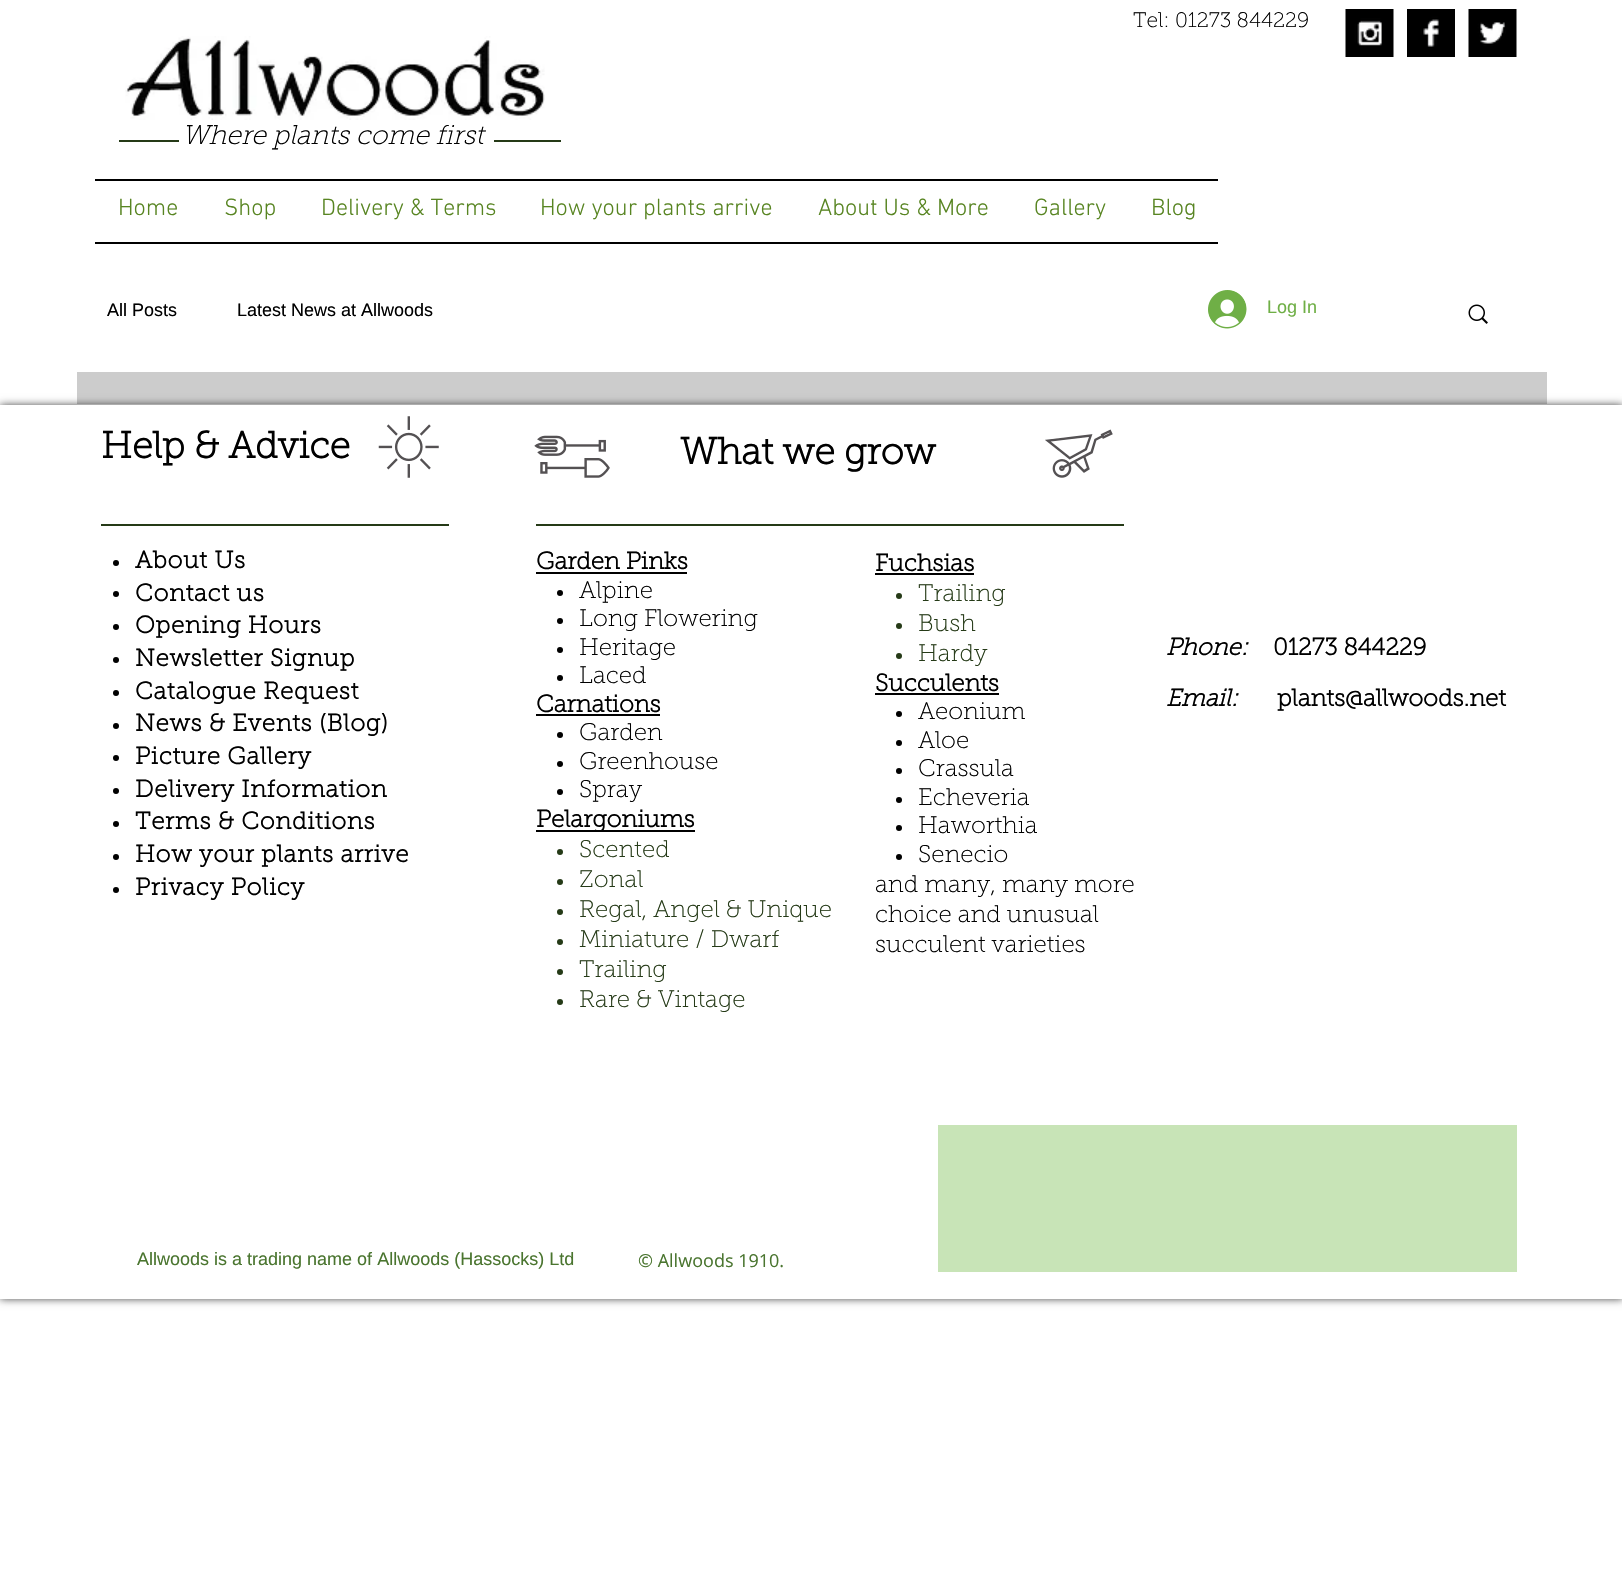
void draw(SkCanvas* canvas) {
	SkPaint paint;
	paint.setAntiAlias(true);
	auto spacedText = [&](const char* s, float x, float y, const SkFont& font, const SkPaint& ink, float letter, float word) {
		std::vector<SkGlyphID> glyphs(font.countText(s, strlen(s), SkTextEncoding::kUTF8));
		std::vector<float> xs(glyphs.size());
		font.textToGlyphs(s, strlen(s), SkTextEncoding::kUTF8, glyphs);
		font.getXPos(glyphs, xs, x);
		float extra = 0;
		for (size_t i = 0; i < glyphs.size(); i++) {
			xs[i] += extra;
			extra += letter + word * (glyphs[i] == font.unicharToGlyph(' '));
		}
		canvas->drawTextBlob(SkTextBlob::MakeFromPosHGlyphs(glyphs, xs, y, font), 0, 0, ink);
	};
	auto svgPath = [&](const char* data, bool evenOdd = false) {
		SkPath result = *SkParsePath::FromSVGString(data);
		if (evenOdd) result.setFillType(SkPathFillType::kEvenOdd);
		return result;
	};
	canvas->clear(0xffffffff);
	SkFont f1(fontMgr->matchFamilyStyle("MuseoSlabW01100", SkFontStyle(100, SkFontStyle::kNormal_Width, SkFontStyle::kUpright_Slant)), 21);
	f1.setSubpixel(true);
	paint.setColor(0xff000000);
	canvas->drawString("Tel: 01273 844229", 1133, 27, f1, paint);
	canvas->drawImageRect(SkImages::DeferredFromEncodedData(SkData::MakeFromFileName("img1.png")), SkRect::MakeXYWH(1345, 9, 49, 48), SkSamplingOptions());
	canvas->drawImageRect(SkImages::DeferredFromEncodedData(SkData::MakeFromFileName("img2.png")), SkRect::MakeXYWH(1407, 9, 48, 48), SkSamplingOptions());
	canvas->drawImageRect(SkImages::DeferredFromEncodedData(SkData::MakeFromFileName("img3.png")), SkRect::MakeXYWH(1468, 9, 49, 48), SkSamplingOptions());
	canvas->drawImageRect(SkImages::DeferredFromEncodedData(SkData::MakeFromFileName("img4.png")), SkRect::MakeXYWH(125, 36, 420, 84), SkSamplingOptions());
	paint.setColor(0xff253a17);
	canvas->drawRect(SkRect::MakeXYWH(119, 140, 60, 2), paint);
	SkFont f2(fontMgr->matchFamilyStyle("MuseoSlabW01100", SkFontStyle(100, SkFontStyle::kNormal_Width, SkFontStyle::kItalic_Slant)), 27);
	f2.setSubpixel(true);
	paint.setColor(0xff000000);
	canvas->drawString("Where plants come first", 182, 144, f2, paint);
	paint.setColor(0xff253a17);
	canvas->drawRect(SkRect::MakeXYWH(494, 140, 67, 2), paint);
	paint.setColor(0xff000000);
	canvas->drawRect(SkRect::MakeXYWH(95, 179, 1123, 2), paint);
	canvas->drawRect(SkRect::MakeXYWH(95, 242, 1123, 2), paint);
	SkFont f3(fontMgr->matchFamilyStyle("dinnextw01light", SkFontStyle(300, SkFontStyle::kNormal_Width, SkFontStyle::kUpright_Slant)), 24);
	f3.setSubpixel(true);
	paint.setColor(0xff588522);
	canvas->drawString("Home", 118, 215, f3, paint);
	canvas->drawString("Shop", 224, 215, f3, paint);
	canvas->drawString("Delivery & Terms", 321, 215, f3, paint);
	canvas->drawString("How your plants arrive", 540, 215, f3, paint);
	canvas->drawString("About Us & More", 818, 215, f3, paint);
	canvas->drawString("Gallery", 1034, 215, f3, paint);
	canvas->drawString("Blog", 1151, 215, f3, paint);
	paint.setColor(0xffcccccc);
	canvas->drawRect(SkRect::MakeXYWH(77, 372, 1470, 32), paint);
	SkFont f4(fontMgr->matchFamilyStyle("Liberation Sans", SkFontStyle::Normal()), 18);
	f4.setSubpixel(true);
	paint.setColor(0xff000000);
	canvas->drawString("All Posts", 107, 316, f4, paint);
	canvas->drawString("Latest News at Allwoods", 237, 316, f4, paint);
	canvas->drawImageRect(SkImages::DeferredFromEncodedData(SkData::MakeFromFileName("img5.png")), SkRect::MakeXYWH(1468, 304, 20, 20), SkSamplingOptions());
	canvas->drawImageRect(SkImages::DeferredFromEncodedData(SkData::MakeFromFileName("img6.png")), SkRect::MakeXYWH(1208, 290, 39, 39), SkSamplingOptions());
	paint.setColor(0xff6faf46);
	canvas->drawString("Log In", 1267, 313, f4, paint);
	canvas->save();
	canvas->clipPath(svgPath("M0 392H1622V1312H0ZM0 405H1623V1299H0Z", true), true);
	paint.setColor(0xb3000000);
	paint.setMaskFilter(SkMaskFilter::MakeBlur(kNormal_SkBlurStyle, 4));
	canvas->drawRect(SkRect::MakeXYWH(0, 405, 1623, 894), paint);
	paint.setMaskFilter(nullptr);
	canvas->restore();
	SkFont f5(fontMgr->matchFamilyStyle("MuseoSlabW01100", SkFontStyle::Bold()), 37.5);
	f5.setSubpixel(true);
	paint.setColor(0xff000000);
	canvas->drawString("Help & Advice", 101, 458, f5, paint);
	canvas->drawImageRect(SkImages::DeferredFromEncodedData(SkData::MakeFromFileName("img7.png")), SkRect::MakeXYWH(378, 416, 61, 62), SkSamplingOptions());
	canvas->drawImageRect(SkImages::DeferredFromEncodedData(SkData::MakeFromFileName("img8.png")), SkRect::MakeXYWH(534, 435, 76, 43), SkSamplingOptions());
	canvas->drawString("What we grow", 680, 464, f5, paint);
	canvas->drawImageRect(SkImages::DeferredFromEncodedData(SkData::MakeFromFileName("img9.png")), SkRect::MakeXYWH(1045, 429, 68, 49), SkSamplingOptions());
	paint.setColor(0xff253a17);
	canvas->drawRect(SkRect::MakeXYWH(101, 524, 348, 2), paint);
	canvas->drawRect(SkRect::MakeXYWH(536, 524, 588, 2), paint);
	paint.setColor(0xff000000);
	canvas->drawCircle(116, 563, 3, paint);
	SkFont f6(fontMgr->matchFamilyStyle("MuseoSlabW01100", SkFontStyle::Bold()), 24);
	f6.setSubpixel(true);
	spacedText("About Us", 135, 568, f6, paint, 0.75, 0);
	canvas->drawCircle(116, 594, 3, paint);
	spacedText("Contact us", 135, 601, f6, paint, 0.75, 0);
	canvas->drawCircle(116, 627, 3, paint);
	spacedText("Opening Hours", 135, 633, f6, paint, 0.75, 0);
	canvas->drawCircle(116, 660, 3, paint);
	spacedText("Newsletter Signup", 135, 666, f6, paint, 0.75, 0);
	canvas->drawCircle(116, 693, 3, paint);
	spacedText("Catalogue Request", 135, 699, f6, paint, 0.75, 0);
	canvas->drawCircle(116, 726, 3, paint);
	spacedText("News & Events (Blog)", 135, 731, f6, paint, 0.75, 0);
	canvas->drawCircle(116, 758, 3, paint);
	spacedText("Picture Gallery", 135, 764, f6, paint, 0.75, 0);
	canvas->drawCircle(116, 791, 3, paint);
	spacedText("Delivery Information", 135, 797, f6, paint, 0.75, 0);
	canvas->drawCircle(116, 824, 3, paint);
	spacedText("Terms & Conditions", 135, 829, f6, paint, 0.75, 0);
	canvas->drawCircle(116, 857, 3, paint);
	spacedText("How your plants arrive", 135, 862, f6, paint, 0.75, 0);
	canvas->drawCircle(116, 890, 3, paint);
	spacedText("Privacy Policy", 135, 895, f6, paint, 0.75, 0);
	canvas->drawString("Garden Pinks", 536, 569, f6, paint);
	canvas->drawRect(SkRect::MakeXYWH(536, 572, 151, 2), paint);
	canvas->drawCircle(560, 593, 3, paint);
	SkFont f7(fontMgr->matchFamilyStyle("MuseoSlabW01100", SkFontStyle(100, SkFontStyle::kNormal_Width, SkFontStyle::kUpright_Slant)), 24);
	f7.setSubpixel(true);
	canvas->drawString("Alpine", 579, 598, f7, paint);
	canvas->drawCircle(560, 621, 3, paint);
	canvas->drawString("Long Flowering", 579, 626, f7, paint);
	canvas->drawCircle(560, 650, 3, paint);
	canvas->drawString("Heritage", 579, 655, f7, paint);
	canvas->drawCircle(560, 678, 3, paint);
	canvas->drawString("Laced", 579, 683, f7, paint);
	canvas->drawString("Carnations", 536, 712, f6, paint);
	canvas->drawRect(SkRect::MakeXYWH(536, 714, 124, 2), paint);
	canvas->drawCircle(560, 735, 3, paint);
	canvas->drawString("Garden", 579, 740, f7, paint);
	canvas->drawCircle(560, 764, 3, paint);
	canvas->drawString("Greenhouse", 579, 769, f7, paint);
	canvas->drawCircle(560, 792, 3, paint);
	canvas->drawString("Spray", 579, 797, f7, paint);
	canvas->drawRect(SkRect::MakeXYWH(536, 830, 159, 2), paint);
	canvas->drawString("Pelargoniums", 536, 827, f6, paint);
	paint.setColor(0xff253a17);
	canvas->drawCircle(560, 852, 3, paint);
	canvas->drawString("Scented", 579, 857, f7, paint);
	canvas->drawCircle(560, 882, 3, paint);
	canvas->drawString("Zonal", 579, 887, f7, paint);
	canvas->drawCircle(560, 912, 3, paint);
	canvas->drawString("Regal, Angel & Unique", 579, 917, f7, paint);
	canvas->drawCircle(560, 942, 3, paint);
	canvas->drawString("Miniature / Dwarf", 579, 947, f7, paint);
	canvas->drawCircle(560, 972, 3, paint);
	canvas->drawString("Trailing", 579, 977, f7, paint);
	canvas->drawCircle(560, 1002, 3, paint);
	canvas->drawString("Rare & Vintage", 579, 1007, f7, paint);
	paint.setColor(0xff000000);
	canvas->drawString("Fuchsias", 875, 571, f6, paint);
	canvas->drawRect(SkRect::MakeXYWH(875, 573, 99, 2), paint);
	paint.setColor(0xff253a17);
	canvas->drawCircle(899, 596, 3, paint);
	canvas->drawString("Trailing", 918, 601, f7, paint);
	canvas->drawCircle(899, 626, 3, paint);
	canvas->drawString("Bush", 918, 631, f7, paint);
	canvas->drawCircle(899, 656, 3, paint);
	canvas->drawString("Hardy", 918, 661, f7, paint);
	paint.setColor(0xff000000);
	canvas->drawString("Succulents", 875, 691, f6, paint);
	canvas->drawRect(SkRect::MakeXYWH(875, 693, 124, 2), paint);
	canvas->drawCircle(899, 714, 3, paint);
	canvas->drawString("Aeonium", 918, 719, f7, paint);
	canvas->drawCircle(899, 743, 3, paint);
	canvas->drawString("Aloe", 918, 748, f7, paint);
	canvas->drawCircle(899, 771, 3, paint);
	canvas->drawString("Crassula", 918, 776, f7, paint);
	canvas->drawCircle(899, 800, 3, paint);
	canvas->drawString("Echeveria", 918, 805, f7, paint);
	canvas->drawCircle(899, 828, 3, paint);
	canvas->drawString("Haworthia", 918, 833, f7, paint);
	canvas->drawCircle(899, 857, 3, paint);
	canvas->drawString("Senecio", 918, 862, f7, paint);
	canvas->drawString("and many, many more", 875, 892, f7, paint);
	canvas->drawString("choice and unusual", 875, 922, f7, paint);
	canvas->drawString("succulent varieties", 875, 952, f7, paint);
	SkFont f8(fontMgr->matchFamilyStyle("MuseoSlabW01100", SkFontStyle::BoldItalic()), 24);
	f8.setSubpixel(true);
	canvas->drawString("Phone:", 1166, 655, f8, paint);
	canvas->drawString("01273 844229", 1273, 655, f6, paint);
	canvas->drawString("Email:", 1166, 706, f8, paint);
	canvas->drawString("plants@allwoods.net", 1277, 706, f6, paint);
	paint.setColor(0xff4a752f);
	canvas->drawString("Allwoods is a trading name of Allwoods (Hassocks) Ltd", 137, 1265, f4, paint);
	SkFont f9(fontMgr->matchFamilyStyle("Open Sans", SkFontStyle::Normal()), 18);
	f9.setSubpixel(true);
	canvas->drawString("© Allwoods 1910.", 638, 1267, f9, paint);
	paint.setColor(0xffc8e4b7);
	canvas->drawRect(SkRect::MakeXYWH(938, 1125, 579, 147), paint);
}
